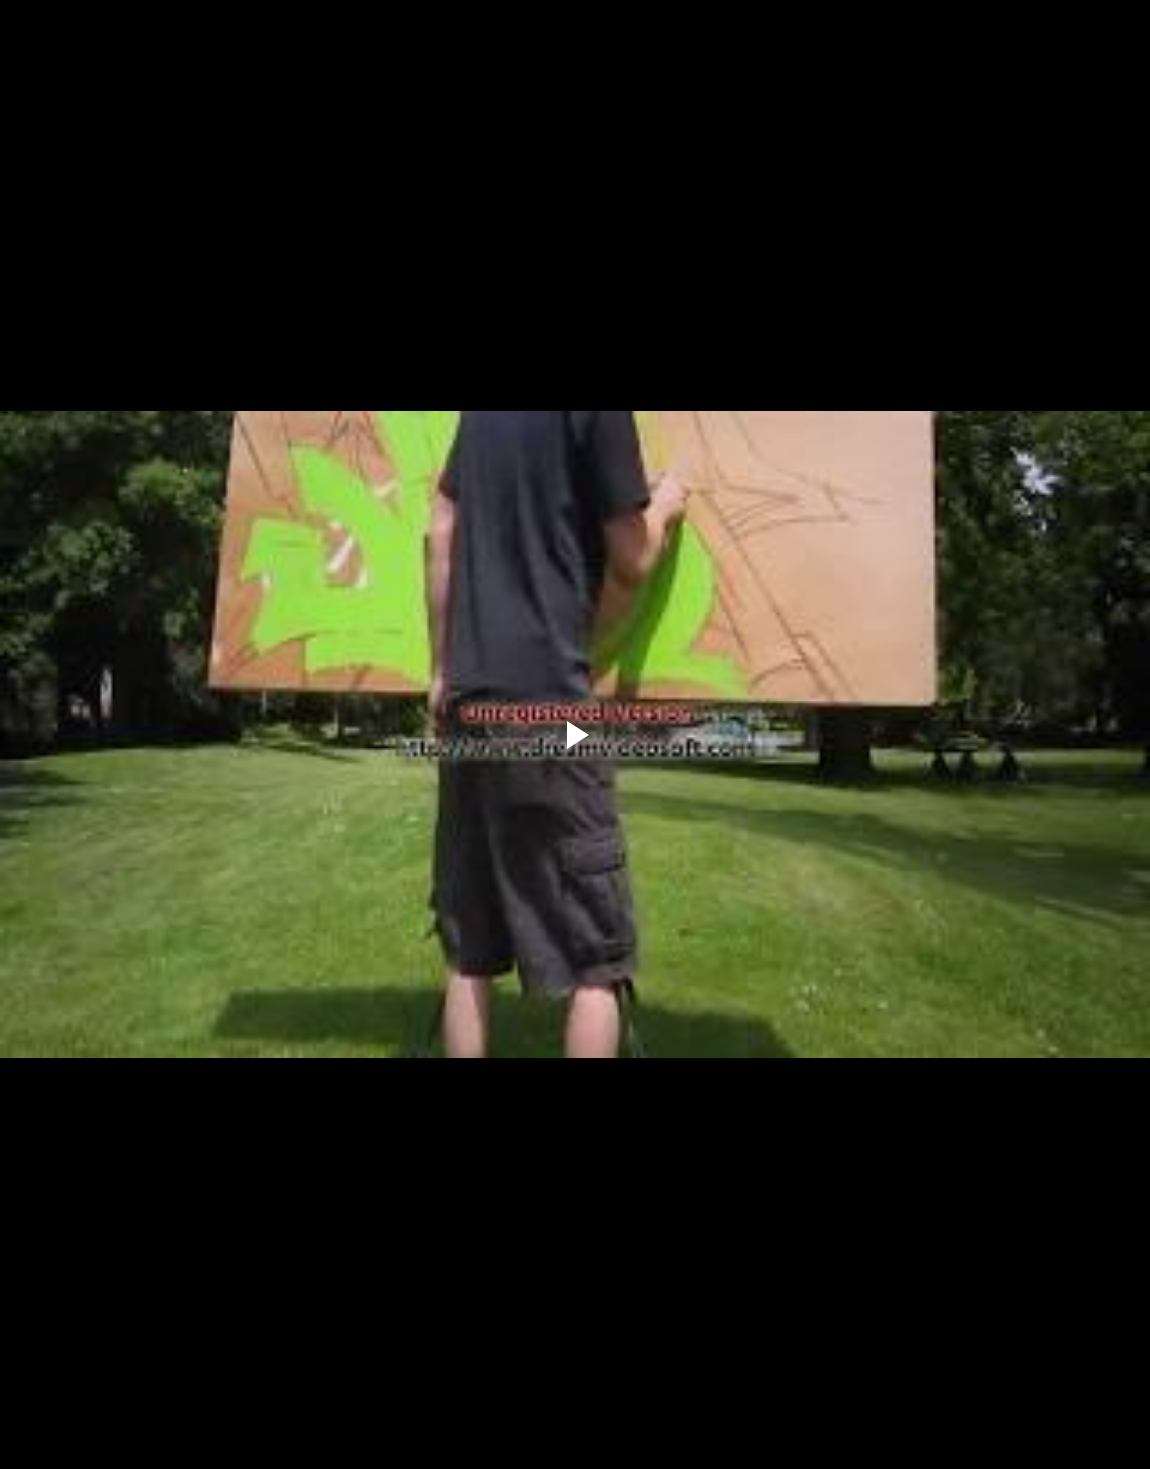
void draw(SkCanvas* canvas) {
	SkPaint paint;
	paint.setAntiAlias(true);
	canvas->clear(0xff000000);
	canvas->drawImageRect(SkImages::DeferredFromEncodedData(SkData::MakeFromFileName("img1.png")), SkRect::MakeXYWH(0, 411, 1150, 647), SkSamplingOptions());
	canvas->drawImageRect(SkImages::DeferredFromEncodedData(SkData::MakeFromFileName("img2.png")), SkRect::MakeXYWH(567, 721, 22, 28), SkSamplingOptions());
}
